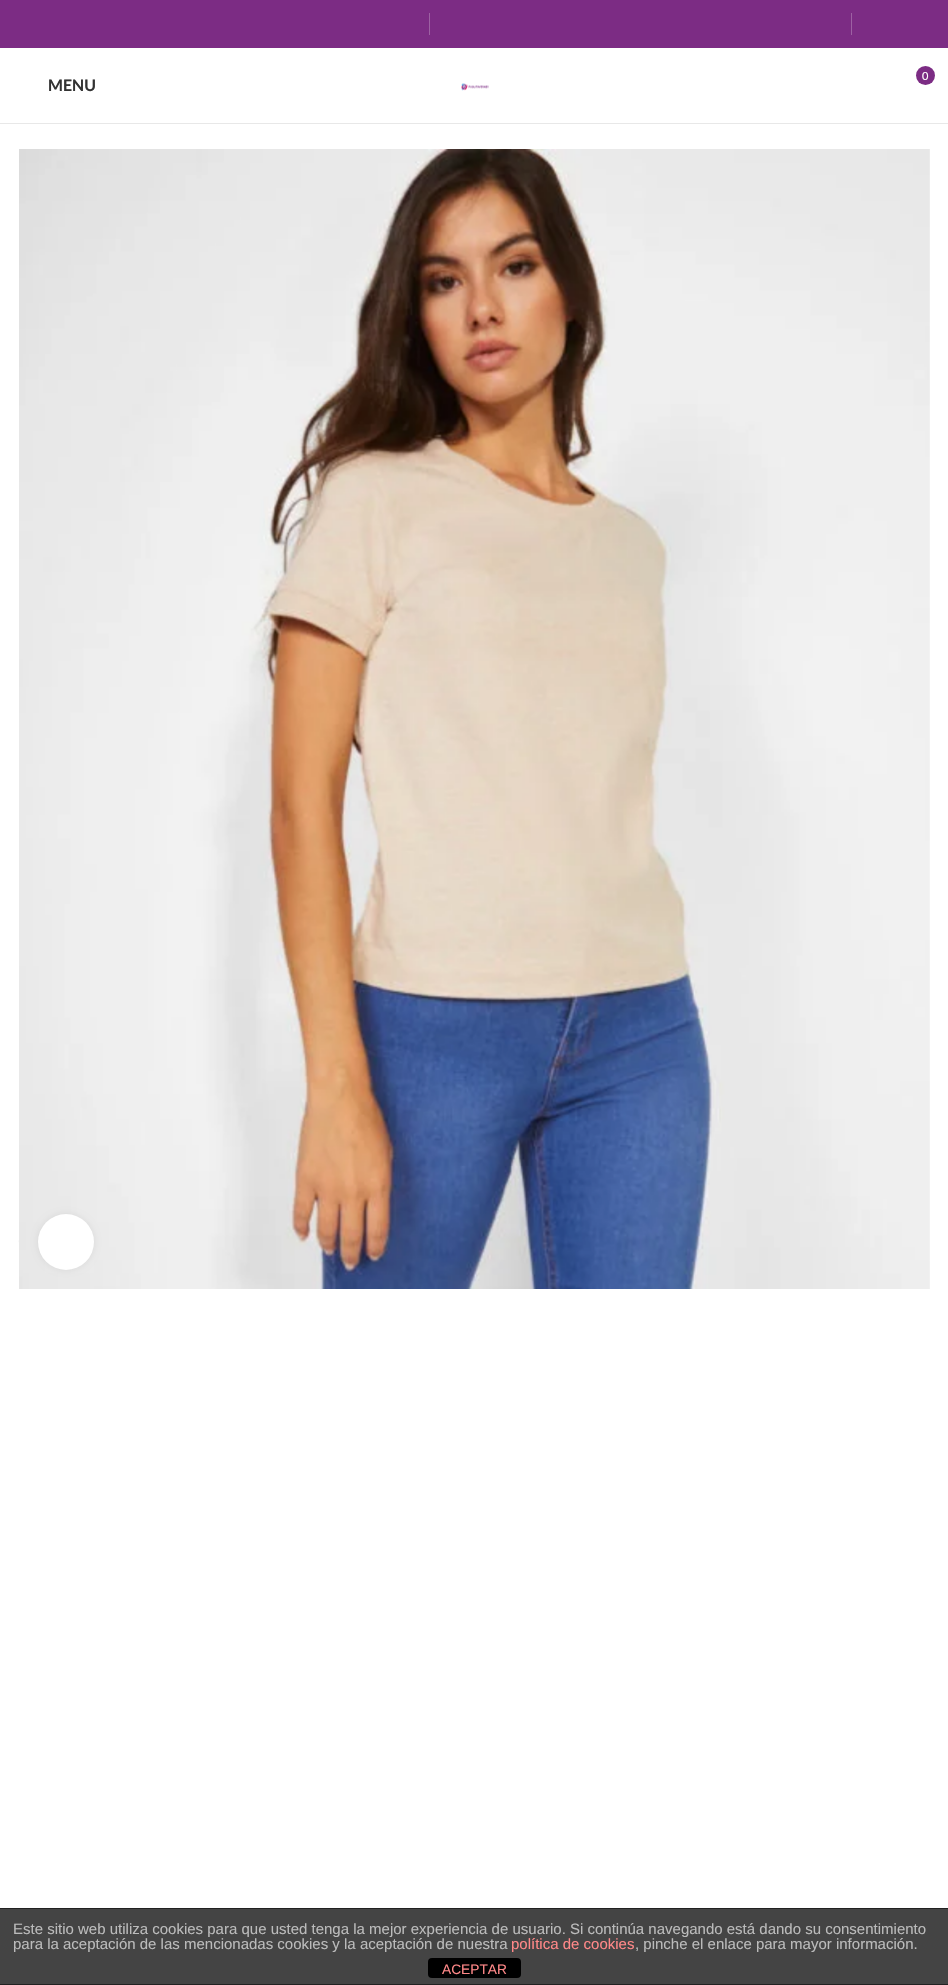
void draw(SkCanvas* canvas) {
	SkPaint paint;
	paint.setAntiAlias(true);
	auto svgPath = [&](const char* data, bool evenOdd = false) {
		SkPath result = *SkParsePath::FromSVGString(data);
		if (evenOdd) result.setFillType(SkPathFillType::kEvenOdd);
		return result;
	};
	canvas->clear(0xffffffff);
	paint.setColor(0xff7c2c84);
	canvas->drawRect(SkRect::MakeXYWH(0, 0, 948, 48), paint);
	paint.setColor(0xff9d61a3);
	canvas->drawRect(SkRect::MakeXYWH(429, 13, 1, 22), paint);
	canvas->drawRect(SkRect::MakeXYWH(851, 13, 1, 22), paint);
	paint.setColor(0xffe8e8e8);
	canvas->drawRect(SkRect::MakeXYWH(0, 123, 948, 1), paint);
	paint.setColor(0xff7c2c84);
	canvas->drawCircle(925.5, 75.5, 9.5, paint);
	SkFont f1(fontMgr->matchFamilyStyle("Lato", SkFontStyle::Normal()), 11);
	f1.setSubpixel(true);
	paint.setColor(0xffffffff);
	canvas->drawString("0", 922, 80, f1, paint);
	SkFont f2(fontMgr->matchFamilyStyle("Lato", SkFontStyle::Bold()), 16);
	f2.setSubpixel(true);
	paint.setColor(0xff333333);
	canvas->drawString("MENU", 48, 91, f2, paint);
	canvas->drawImageRect(SkImages::DeferredFromEncodedData(SkData::MakeFromFileName("img1.png")), SkRect::MakeXYWH(461, 83, 28, 8), SkSamplingOptions());
	canvas->drawImageRect(SkImages::DeferredFromEncodedData(SkData::MakeFromFileName("img2.png")), SkRect::MakeXYWH(19, 149, 911, 1140), SkSamplingOptions());
	paint.setColor(0x14000000);
	paint.setMaskFilter(SkMaskFilter::MakeBlur(kNormal_SkBlurStyle, 3));
	canvas->drawRoundRect(SkRect::MakeXYWH(38, 1214, 56, 56), 28, 28, paint);
	paint.setMaskFilter(nullptr);
	paint.setColor(0xffffffff);
	canvas->drawCircle(66, 1242, 28, paint);
	paint.setStroke(true);
	paint.setStrokeWidth(1.2);
	paint.setColor(0xffe7e7e7);
	canvas->drawPath(svgPath("M22 1248C18.5 1244.5 18.5 1238 22 1234.5"), paint);
	paint.setStroke(false);
	paint.setColor(0xff444444);
	canvas->drawRect(SkRect::MakeXYWH(0, 1909, 948, 75), paint);
	paint.setColor(0xff222222);
	canvas->drawRect(SkRect::MakeXYWH(0, 1908, 948, 1), paint);
	canvas->drawRect(SkRect::MakeXYWH(0, 1984, 948, 1), paint);
	SkFont f3(fontMgr->matchFamilyStyle("Liberation Sans", SkFontStyle::Normal()), 15);
	f3.setSubpixel(true);
	paint.setColor(0xffbbbbbb);
	canvas->drawString("Este sitio web utiliza cookies para que usted tenga la mejor experiencia de usuario. Si continúa navegando está dando su consentimiento", 13, 1934, f3, paint);
	canvas->drawString("para la aceptación de las mencionadas cookies y la aceptación de nuestra", 13, 1949, f3, paint);
	paint.setColor(0xffff8888);
	canvas->drawString("política de cookies", 511, 1949, f3, paint);
	paint.setColor(0xffbbbbbb);
	canvas->drawString(", pinche el enlace para mayor información.", 635, 1949, f3, paint);
	paint.setColor(0xff000000);
	canvas->drawRoundRect(SkRect::MakeXYWH(428, 1958, 93, 20), 4, 4, paint);
	SkFont f4(fontMgr->matchFamilyStyle("Liberation Sans", SkFontStyle::Normal()), 13.75);
	f4.setSubpixel(true);
	paint.setColor(0xffff8888);
	canvas->drawString("ACEPTAR", 442, 1974, f4, paint);
}
